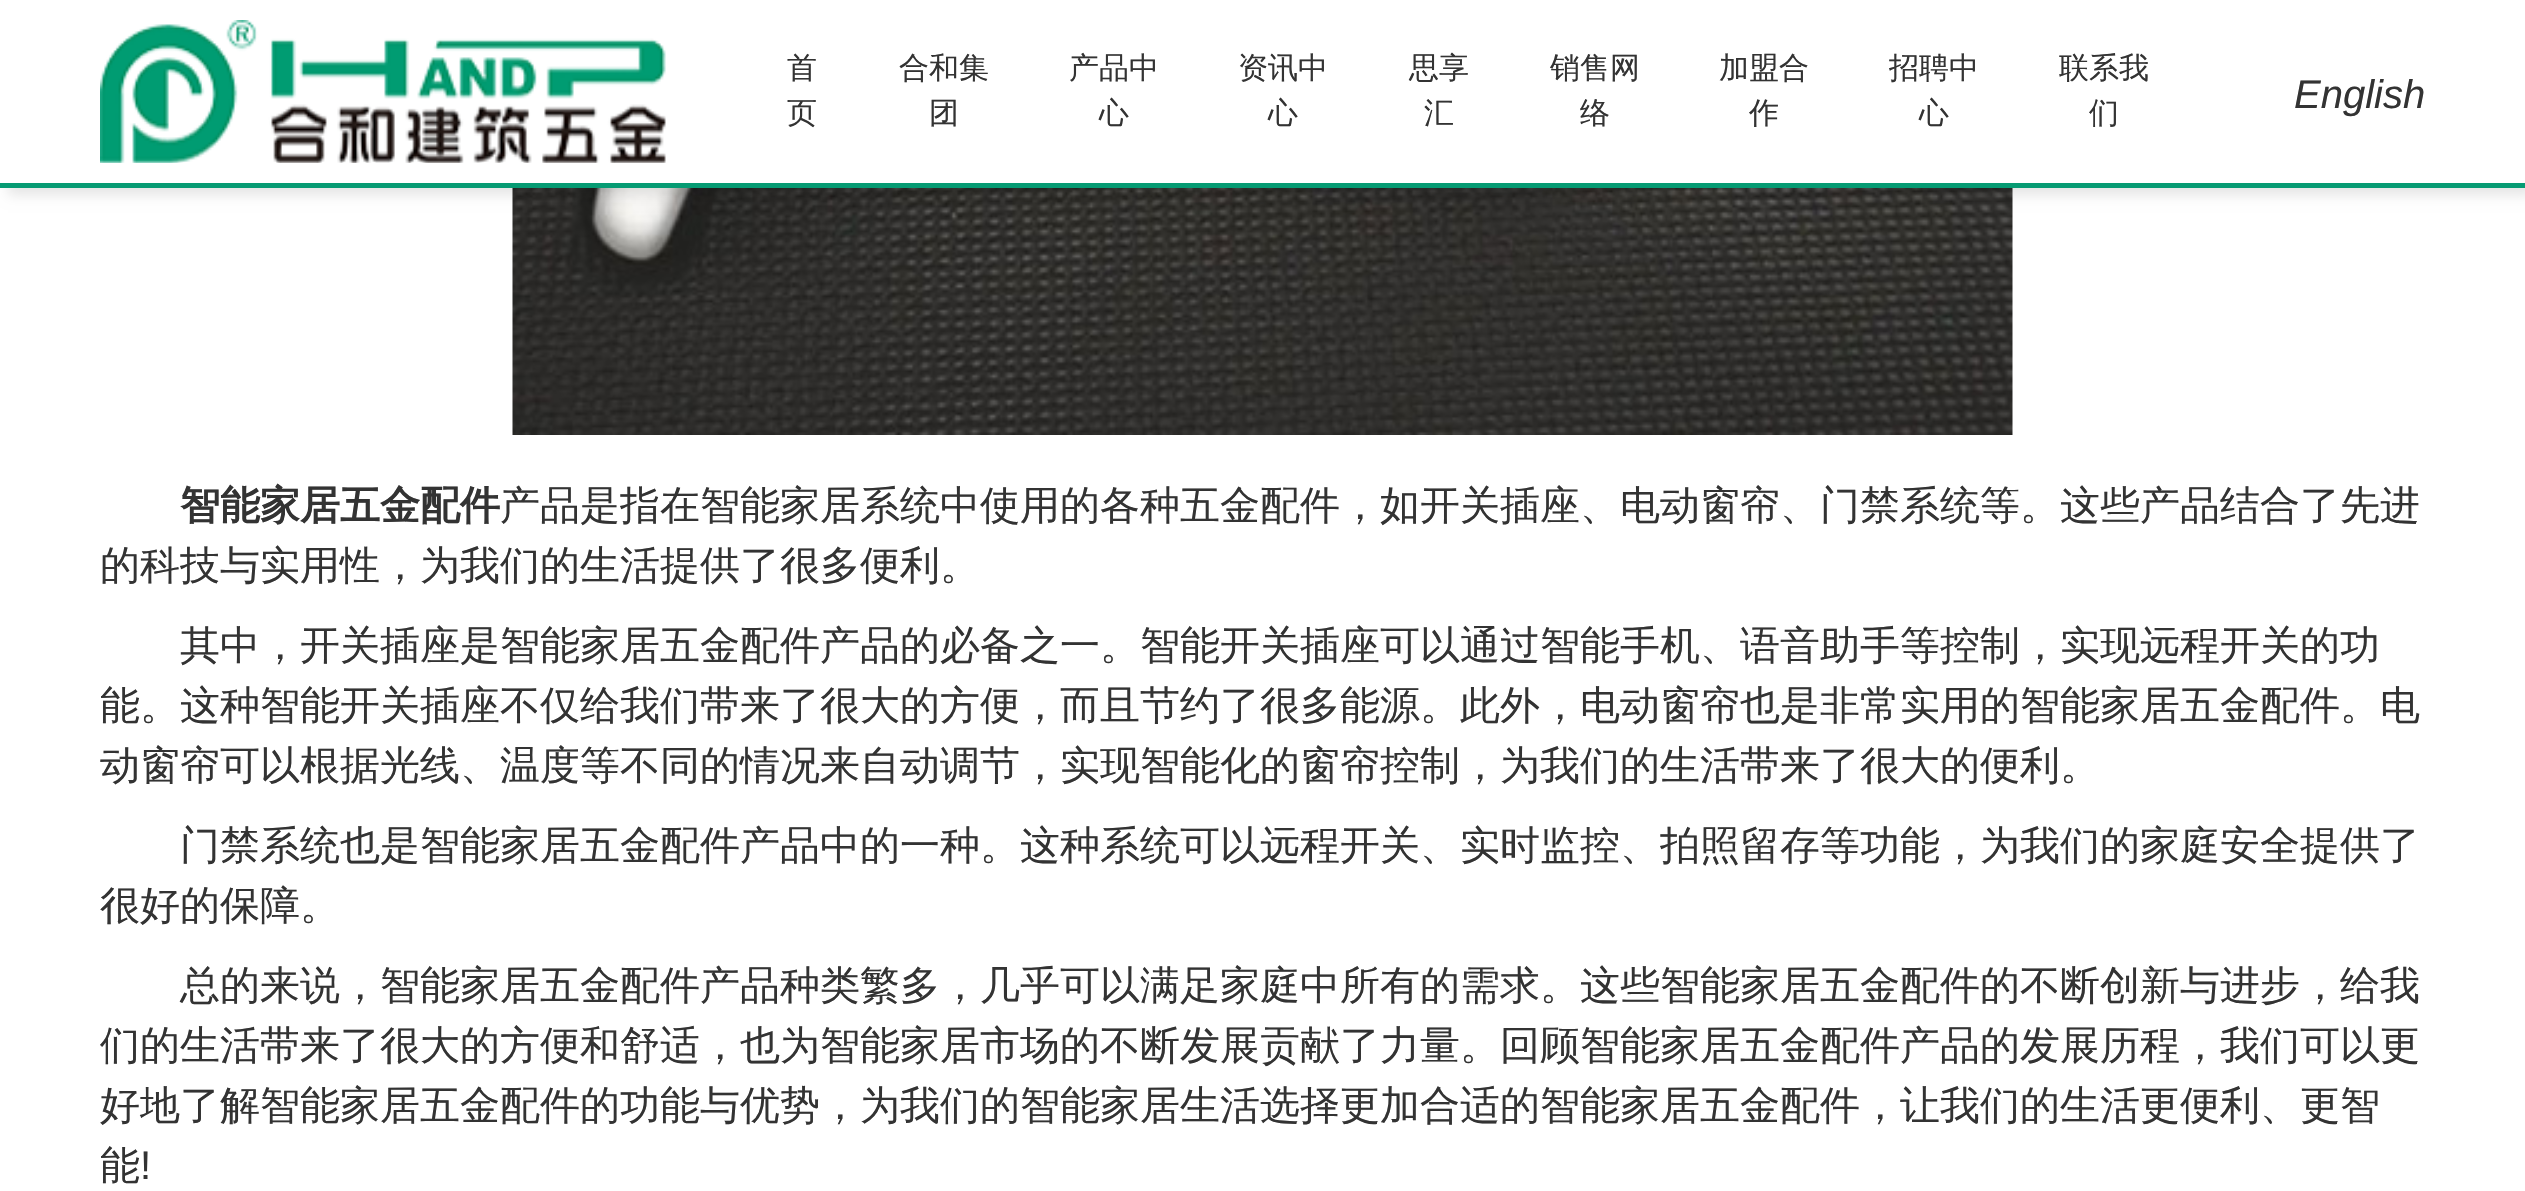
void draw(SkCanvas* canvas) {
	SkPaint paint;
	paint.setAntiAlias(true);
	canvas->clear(0xffffffff);
	canvas->drawImageRect(SkImages::DeferredFromEncodedData(SkData::MakeFromFileName("img2.png")), SkRect::MakeXYWH(512, 188, 1501, 247), SkSamplingOptions());
	paint.setColor(0x1a000000);
	paint.setMaskFilter(SkMaskFilter::MakeBlur(kNormal_SkBlurStyle, 6));
	canvas->drawRect(SkRect::MakeXYWH(8, 8, 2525, 187), paint);
	paint.setMaskFilter(nullptr);
	paint.setColor(0xffffffff);
	canvas->drawRect(SkRect::MakeXYWH(0, 0, 2525, 183), paint);
	paint.setColor(0xff069b73);
	canvas->drawRect(SkRect::MakeXYWH(0, 183, 2525, 5), paint);
	canvas->drawImageRect(SkImages::DeferredFromEncodedData(SkData::MakeFromFileName("img1.png")), SkRect::MakeXYWH(100, 20, 566, 143), SkSamplingOptions());
	SkFont f1(fontMgr->matchFamilyStyle("WenQuanYi Zen Hei", SkFontStyle(500, SkFontStyle::kNormal_Width, SkFontStyle::kUpright_Slant)), 30);
	f1.setSubpixel(true);
	paint.setColor(0xff333333);
	canvas->drawString("首", 787, 78, f1, paint);
	canvas->drawString("页", 787, 123, f1, paint);
	canvas->drawString("合和集", 899, 78, f1, paint);
	canvas->drawString("团", 929, 123, f1, paint);
	canvas->drawString("产品中", 1069, 78, f1, paint);
	canvas->drawString("心", 1099, 123, f1, paint);
	canvas->drawString("资讯中", 1238, 78, f1, paint);
	canvas->drawString("心", 1268, 123, f1, paint);
	canvas->drawString("思享", 1409, 78, f1, paint);
	canvas->drawString("汇", 1424, 123, f1, paint);
	canvas->drawString("销售网", 1550, 78, f1, paint);
	canvas->drawString("络", 1580, 123, f1, paint);
	canvas->drawString("加盟合", 1719, 78, f1, paint);
	canvas->drawString("作", 1749, 123, f1, paint);
	canvas->drawString("招聘中", 1889, 78, f1, paint);
	canvas->drawString("心", 1919, 123, f1, paint);
	canvas->drawString("联系我", 2059, 78, f1, paint);
	canvas->drawString("们", 2089, 123, f1, paint);
	SkFont f2(fontMgr->matchFamilyStyle("Liberation Sans", SkFontStyle::Italic()), 40);
	f2.setSubpixel(true);
	canvas->drawString("English", 2294, 108, f2, paint);
	SkFont f3(fontMgr->matchFamilyStyle("WenQuanYi Zen Hei", SkFontStyle::Bold()), 40);
	f3.setSubpixel(true);
	canvas->drawString("智能家居五金配件", 180, 519, f3, paint);
	SkFont f4(fontMgr->matchFamilyStyle("WenQuanYi Zen Hei", SkFontStyle(500, SkFontStyle::kNormal_Width, SkFontStyle::kUpright_Slant)), 40);
	f4.setSubpixel(true);
	canvas->drawString("产品是指在智能家居系统中使用的各种五金配件，如开关插座、电动窗帘、门禁系统等。这些产品结合了先进", 500, 519, f4, paint);
	canvas->drawString("的科技与实用性，为我们的生活提供了很多便利。", 100, 579, f4, paint);
	canvas->drawString("其中，开关插座是智能家居五金配件产品的必备之一。智能开关插座可以通过智能手机、语音助手等控制，实现远程开关的功", 180, 659, f4, paint);
	canvas->drawString("能。这种智能开关插座不仅给我们带来了很大的方便，而且节约了很多能源。此外，电动窗帘也是非常实用的智能家居五金配件。电", 100, 719, f4, paint);
	canvas->drawString("动窗帘可以根据光线、温度等不同的情况来自动调节，实现智能化的窗帘控制，为我们的生活带来了很大的便利。", 100, 779, f4, paint);
	canvas->drawString("门禁系统也是智能家居五金配件产品中的一种。这种系统可以远程开关、实时监控、拍照留存等功能，为我们的家庭安全提供了", 180, 859, f4, paint);
	canvas->drawString("很好的保障。", 100, 919, f4, paint);
	canvas->drawString("总的来说，智能家居五金配件产品种类繁多，几乎可以满足家庭中所有的需求。这些智能家居五金配件的不断创新与进步，给我", 180, 999, f4, paint);
	canvas->drawString("们的生活带来了很大的方便和舒适，也为智能家居市场的不断发展贡献了力量。回顾智能家居五金配件产品的发展历程，我们可以更", 100, 1059, f4, paint);
	canvas->drawString("好地了解智能家居五金配件的功能与优势，为我们的智能家居生活选择更加合适的智能家居五金配件，让我们的生活更便利、更智", 100, 1119, f4, paint);
	canvas->drawString("能", 100, 1179, f4, paint);
	SkFont f5(fontMgr->matchFamilyStyle("Liberation Sans", SkFontStyle::Normal()), 40);
	f5.setSubpixel(true);
	canvas->drawString("!", 140, 1179, f5, paint);
}
